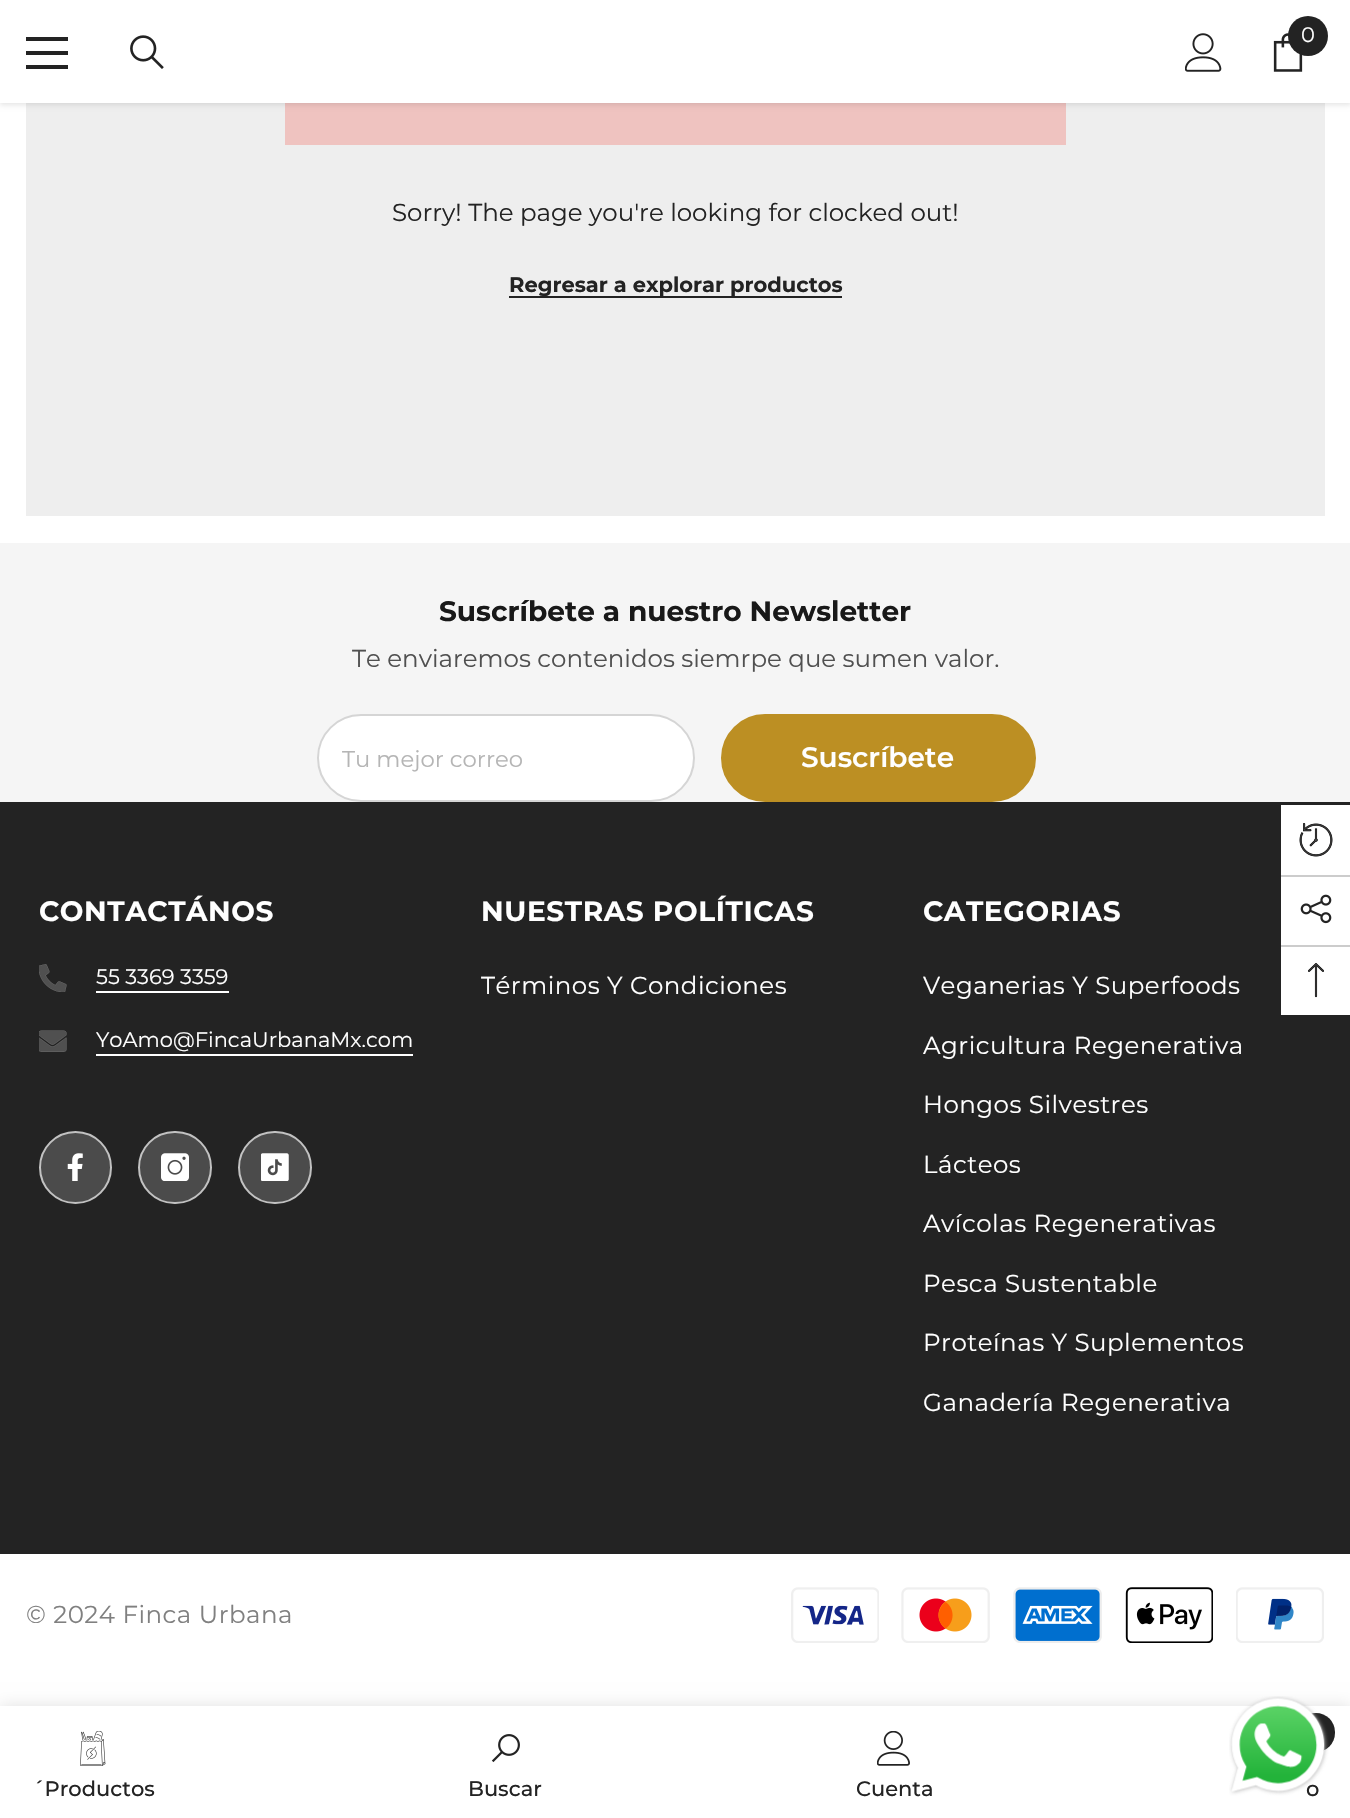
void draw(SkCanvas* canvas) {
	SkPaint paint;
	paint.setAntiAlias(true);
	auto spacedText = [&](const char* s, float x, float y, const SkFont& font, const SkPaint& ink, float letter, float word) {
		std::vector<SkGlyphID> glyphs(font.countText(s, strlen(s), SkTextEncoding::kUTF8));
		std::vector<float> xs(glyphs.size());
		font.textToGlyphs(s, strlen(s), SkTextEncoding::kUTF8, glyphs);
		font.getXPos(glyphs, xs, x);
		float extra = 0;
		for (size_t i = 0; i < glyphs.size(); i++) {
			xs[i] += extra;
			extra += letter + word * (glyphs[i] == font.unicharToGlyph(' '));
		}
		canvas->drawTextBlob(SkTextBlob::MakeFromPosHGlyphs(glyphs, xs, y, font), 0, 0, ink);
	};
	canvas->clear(0xffffffff);
	paint.setColor(0xffeeeeee);
	canvas->drawRect(SkRect::MakeXYWH(26, 103, 1299, 413), paint);
	paint.setColor(0xffefc3c0);
	canvas->drawRect(SkRect::MakeXYWH(285, 103, 781, 42), paint);
	paint.setColor(0x1a000000);
	paint.setMaskFilter(SkMaskFilter::MakeBlur(kNormal_SkBlurStyle, 2.5));
	canvas->drawRect(SkRect::MakeXYWH(0, 2, 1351, 103), paint);
	paint.setMaskFilter(nullptr);
	paint.setColor(0xffffffff);
	canvas->drawRect(SkRect::MakeXYWH(0, 0, 1350, 103), paint);
	paint.setColor(0xff232323);
	canvas->drawRect(SkRect::MakeXYWH(26, 51, 42, 4), paint);
	canvas->drawRect(SkRect::MakeXYWH(26, 37, 42, 4), paint);
	canvas->drawRect(SkRect::MakeXYWH(26, 65, 42, 4), paint);
	canvas->drawImageRect(SkImages::DeferredFromEncodedData(SkData::MakeFromFileName("img1.png")), SkRect::MakeXYWH(130, 35, 34, 34), SkSamplingOptions());
	canvas->drawImageRect(SkImages::DeferredFromEncodedData(SkData::MakeFromFileName("img2.png")), SkRect::MakeXYWH(1185, 33, 37, 39), SkSamplingOptions());
	canvas->drawImageRect(SkImages::DeferredFromEncodedData(SkData::MakeFromFileName("img3.png")), SkRect::MakeXYWH(1273, 33, 30, 39), SkSamplingOptions());
	canvas->drawCircle(1308, 36, 20, paint);
	SkFont f1(fontMgr->matchFamilyStyle("Montserrat", SkFontStyle::Normal()), 21);
	f1.setSubpixel(true);
	paint.setColor(0xffffffff);
	canvas->drawString("0", 1301, 42, f1, paint);
	SkFont f2(fontMgr->matchFamilyStyle("Montserrat", SkFontStyle::Normal()), 24.5);
	f2.setSubpixel(true);
	paint.setColor(0xff232323);
	canvas->drawString("Sorry! The page you're looking for clocked out!", 392, 221, f2, paint);
	canvas->drawRect(SkRect::MakeXYWH(509, 296, 333, 2), paint);
	SkFont f3(fontMgr->matchFamilyStyle("Montserrat", SkFontStyle::Bold()), 21);
	f3.setSubpixel(true);
	canvas->drawString("Regresar a explorar productos", 509, 292, f3, paint);
	paint.setColor(0xfff5f5f5);
	canvas->drawRect(SkRect::MakeXYWH(0, 543, 1350, 259), paint);
	SkFont f4(fontMgr->matchFamilyStyle("Montserrat", SkFontStyle::Bold()), 28);
	f4.setSubpixel(true);
	paint.setColor(0xff191919);
	canvas->drawString("Suscríbete a nuestro Newsletter", 439, 621, f4, paint);
	paint.setColor(0xff505050);
	canvas->drawString("Te enviaremos contenidos siemrpe que sumen valor.", 352, 667, f2, paint);
	paint.setColor(0xffffffff);
	canvas->drawRoundRect(SkRect::MakeXYWH(318, 715, 376, 86), 43, 43, paint);
	paint.setStroke(true);
	paint.setStrokeWidth(2);
	paint.setColor(0xffd5d5d5);
	canvas->drawRoundRect(SkRect::MakeXYWH(318, 715, 376, 86), 43, 43, paint);
	SkFont f5(fontMgr->matchFamilyStyle("Montserrat", SkFontStyle::Normal()), 22.75);
	f5.setSubpixel(true);
	paint.setStroke(false);
	paint.setColor(0xffb5b5b5);
	canvas->drawString("Tu mejor correo", 342, 767, f5, paint);
	paint.setColor(0xffbc8f23);
	canvas->drawRoundRect(SkRect::MakeXYWH(722, 715, 313, 86), 43, 43, paint);
	paint.setStroke(true);
	canvas->drawRoundRect(SkRect::MakeXYWH(722, 715, 313, 86), 43, 43, paint);
	SkFont f6(fontMgr->matchFamilyStyle("Montserrat", SkFontStyle(600, SkFontStyle::kNormal_Width, SkFontStyle::kUpright_Slant)), 28);
	f6.setSubpixel(true);
	paint.setStroke(false);
	paint.setColor(0xffffffff);
	canvas->drawString("Suscríbete", 801, 767, f6, paint);
	paint.setColor(0xff232323);
	canvas->drawRect(SkRect::MakeXYWH(0, 802, 1350, 752), paint);
	paint.setColor(0xffffffff);
	spacedText("CONTACTÁNOS", 39, 921, f4, paint, 0.6, 0);
	canvas->drawImageRect(SkImages::DeferredFromEncodedData(SkData::MakeFromFileName("img4.png")), SkRect::MakeXYWH(39, 964, 28, 28), SkSamplingOptions());
	canvas->drawString("55 3369 3359", 96, 984, f1, paint);
	canvas->drawRect(SkRect::MakeXYWH(96, 991, 133, 2), paint);
	canvas->drawImageRect(SkImages::DeferredFromEncodedData(SkData::MakeFromFileName("img5.png")), SkRect::MakeXYWH(39, 1030, 28, 22), SkSamplingOptions());
	canvas->drawString("YoAmo@FincaUrbanaMx.com", 96, 1047, f1, paint);
	canvas->drawRect(SkRect::MakeXYWH(96, 1054, 317, 2), paint);
	paint.setColor(0xff4b4b4b);
	canvas->drawCircle(75.5, 1167.5, 35.5, paint);
	paint.setStroke(true);
	paint.setColor(0xffc2c2c2);
	canvas->drawCircle(75.5, 1167.5, 35.5, paint);
	canvas->drawImageRect(SkImages::DeferredFromEncodedData(SkData::MakeFromFileName("img6.png")), SkRect::MakeXYWH(67, 1153, 16, 28), SkSamplingOptions());
	paint.setStroke(false);
	paint.setColor(0xff4b4b4b);
	canvas->drawRoundRect(SkRect::MakeXYWH(139, 1132, 72, 71), 35.5, 35.5, paint);
	paint.setStroke(true);
	paint.setColor(0xffc2c2c2);
	canvas->drawRoundRect(SkRect::MakeXYWH(139, 1132, 72, 71), 35.5, 35.5, paint);
	canvas->drawImageRect(SkImages::DeferredFromEncodedData(SkData::MakeFromFileName("img7.png")), SkRect::MakeXYWH(161, 1153, 28, 28), SkSamplingOptions());
	paint.setStroke(false);
	paint.setColor(0xff4b4b4b);
	canvas->drawRoundRect(SkRect::MakeXYWH(239, 1132, 72, 71), 35.5, 35.5, paint);
	paint.setStroke(true);
	paint.setColor(0xffc2c2c2);
	canvas->drawRoundRect(SkRect::MakeXYWH(239, 1132, 72, 71), 35.5, 35.5, paint);
	canvas->drawImageRect(SkImages::DeferredFromEncodedData(SkData::MakeFromFileName("img8.png")), SkRect::MakeXYWH(261, 1153, 28, 28), SkSamplingOptions());
	paint.setStroke(false);
	paint.setColor(0xffffffff);
	spacedText("NUESTRAS POLÍTICAS", 481, 921, f4, paint, 0.6, 0);
	spacedText("Términos Y Condiciones", 481, 994, f2, paint, 0.5, 0);
	spacedText("CATEGORIAS", 923, 921, f4, paint, 0.6, 0);
	spacedText("Veganerias Y Superfoods", 923, 994, f2, paint, 0.5, 0);
	spacedText("Agricultura Regenerativa", 923, 1054, f2, paint, 0.5, 0);
	spacedText("Hongos Silvestres", 923, 1113, f2, paint, 0.5, 0);
	spacedText("Lácteos", 923, 1173, f2, paint, 0.5, 0);
	spacedText("Avícolas Regenerativas", 923, 1232, f2, paint, 0.5, 0);
	spacedText("Pesca Sustentable", 923, 1292, f2, paint, 0.5, 0);
	spacedText("Proteínas Y Suplementos", 923, 1351, f2, paint, 0.5, 0);
	spacedText("Ganadería Regenerativa", 923, 1411, f2, paint, 0.5, 0);
	paint.setColor(0xff808080);
	spacedText("© 2024 Finca Urbana", 26, 1623, f2, paint, 0.5, 0);
	canvas->drawImageRect(SkImages::DeferredFromEncodedData(SkData::MakeFromFileName("img9.png")), SkRect::MakeXYWH(791, 1587, 88, 56), SkSamplingOptions());
	canvas->drawImageRect(SkImages::DeferredFromEncodedData(SkData::MakeFromFileName("img10.png")), SkRect::MakeXYWH(901, 1587, 89, 56), SkSamplingOptions());
	canvas->drawImageRect(SkImages::DeferredFromEncodedData(SkData::MakeFromFileName("img11.png")), SkRect::MakeXYWH(1013, 1587, 89, 56), SkSamplingOptions());
	canvas->drawImageRect(SkImages::DeferredFromEncodedData(SkData::MakeFromFileName("img12.png")), SkRect::MakeXYWH(1125, 1587, 88, 56), SkSamplingOptions());
	canvas->drawImageRect(SkImages::DeferredFromEncodedData(SkData::MakeFromFileName("img13.png")), SkRect::MakeXYWH(1236, 1587, 88, 56), SkSamplingOptions());
	paint.setColor(0x1f000000);
	paint.setMaskFilter(SkMaskFilter::MakeBlur(kNormal_SkBlurStyle, 8));
	canvas->drawRect(SkRect::MakeXYWH(0, 1706, 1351, 112), paint);
	paint.setMaskFilter(nullptr);
	paint.setColor(0xffffffff);
	canvas->drawRect(SkRect::MakeXYWH(0, 1706, 1350, 112), paint);
	canvas->drawImageRect(SkImages::DeferredFromEncodedData(SkData::MakeFromFileName("img14.png")), SkRect::MakeXYWH(80, 1731, 26, 35), SkSamplingOptions());
	SkFont f7(fontMgr->matchFamilyStyle("Montserrat", SkFontStyle(500, SkFontStyle::kNormal_Width, SkFontStyle::kUpright_Slant)), 21);
	f7.setSubpixel(true);
	paint.setColor(0xff232323);
	canvas->drawString("´Productos", 32, 1796, f7, paint);
	canvas->drawImageRect(SkImages::DeferredFromEncodedData(SkData::MakeFromFileName("img15.png")), SkRect::MakeXYWH(491, 1734, 29, 29), SkSamplingOptions());
	canvas->drawString("Buscar", 468, 1796, f7, paint);
	canvas->drawImageRect(SkImages::DeferredFromEncodedData(SkData::MakeFromFileName("img16.png")), SkRect::MakeXYWH(877, 1731, 33, 35), SkSamplingOptions());
	canvas->drawString("Cuenta", 856, 1796, f7, paint);
	canvas->drawRoundRect(SkRect::MakeXYWH(1297, 1713, 38, 39), 19, 19, paint);
	canvas->drawString("o", 1306, 1796, f7, paint);
	paint.setColor(0xffffffff);
	canvas->drawRect(SkRect::MakeXYWH(1281, 805, 69, 210), paint);
	canvas->drawImageRect(SkImages::DeferredFromEncodedData(SkData::MakeFromFileName("img17.png")), SkRect::MakeXYWH(1299, 823, 34, 34), SkSamplingOptions());
	paint.setColor(0xffcccccc);
	canvas->drawRect(SkRect::MakeXYWH(1281, 875, 69, 2), paint);
	canvas->drawImageRect(SkImages::DeferredFromEncodedData(SkData::MakeFromFileName("img18.png")), SkRect::MakeXYWH(1300, 894, 32, 30), SkSamplingOptions());
	canvas->drawRect(SkRect::MakeXYWH(1281, 945, 69, 2), paint);
	canvas->drawImageRect(SkImages::DeferredFromEncodedData(SkData::MakeFromFileName("img19.png")), SkRect::MakeXYWH(1308, 963, 16, 35), SkSamplingOptions());
	canvas->drawImageRect(SkImages::DeferredFromEncodedData(SkData::MakeFromFileName("img20.png")), SkRect::MakeXYWH(1229, 1696, 100, 100), SkSamplingOptions());
}
